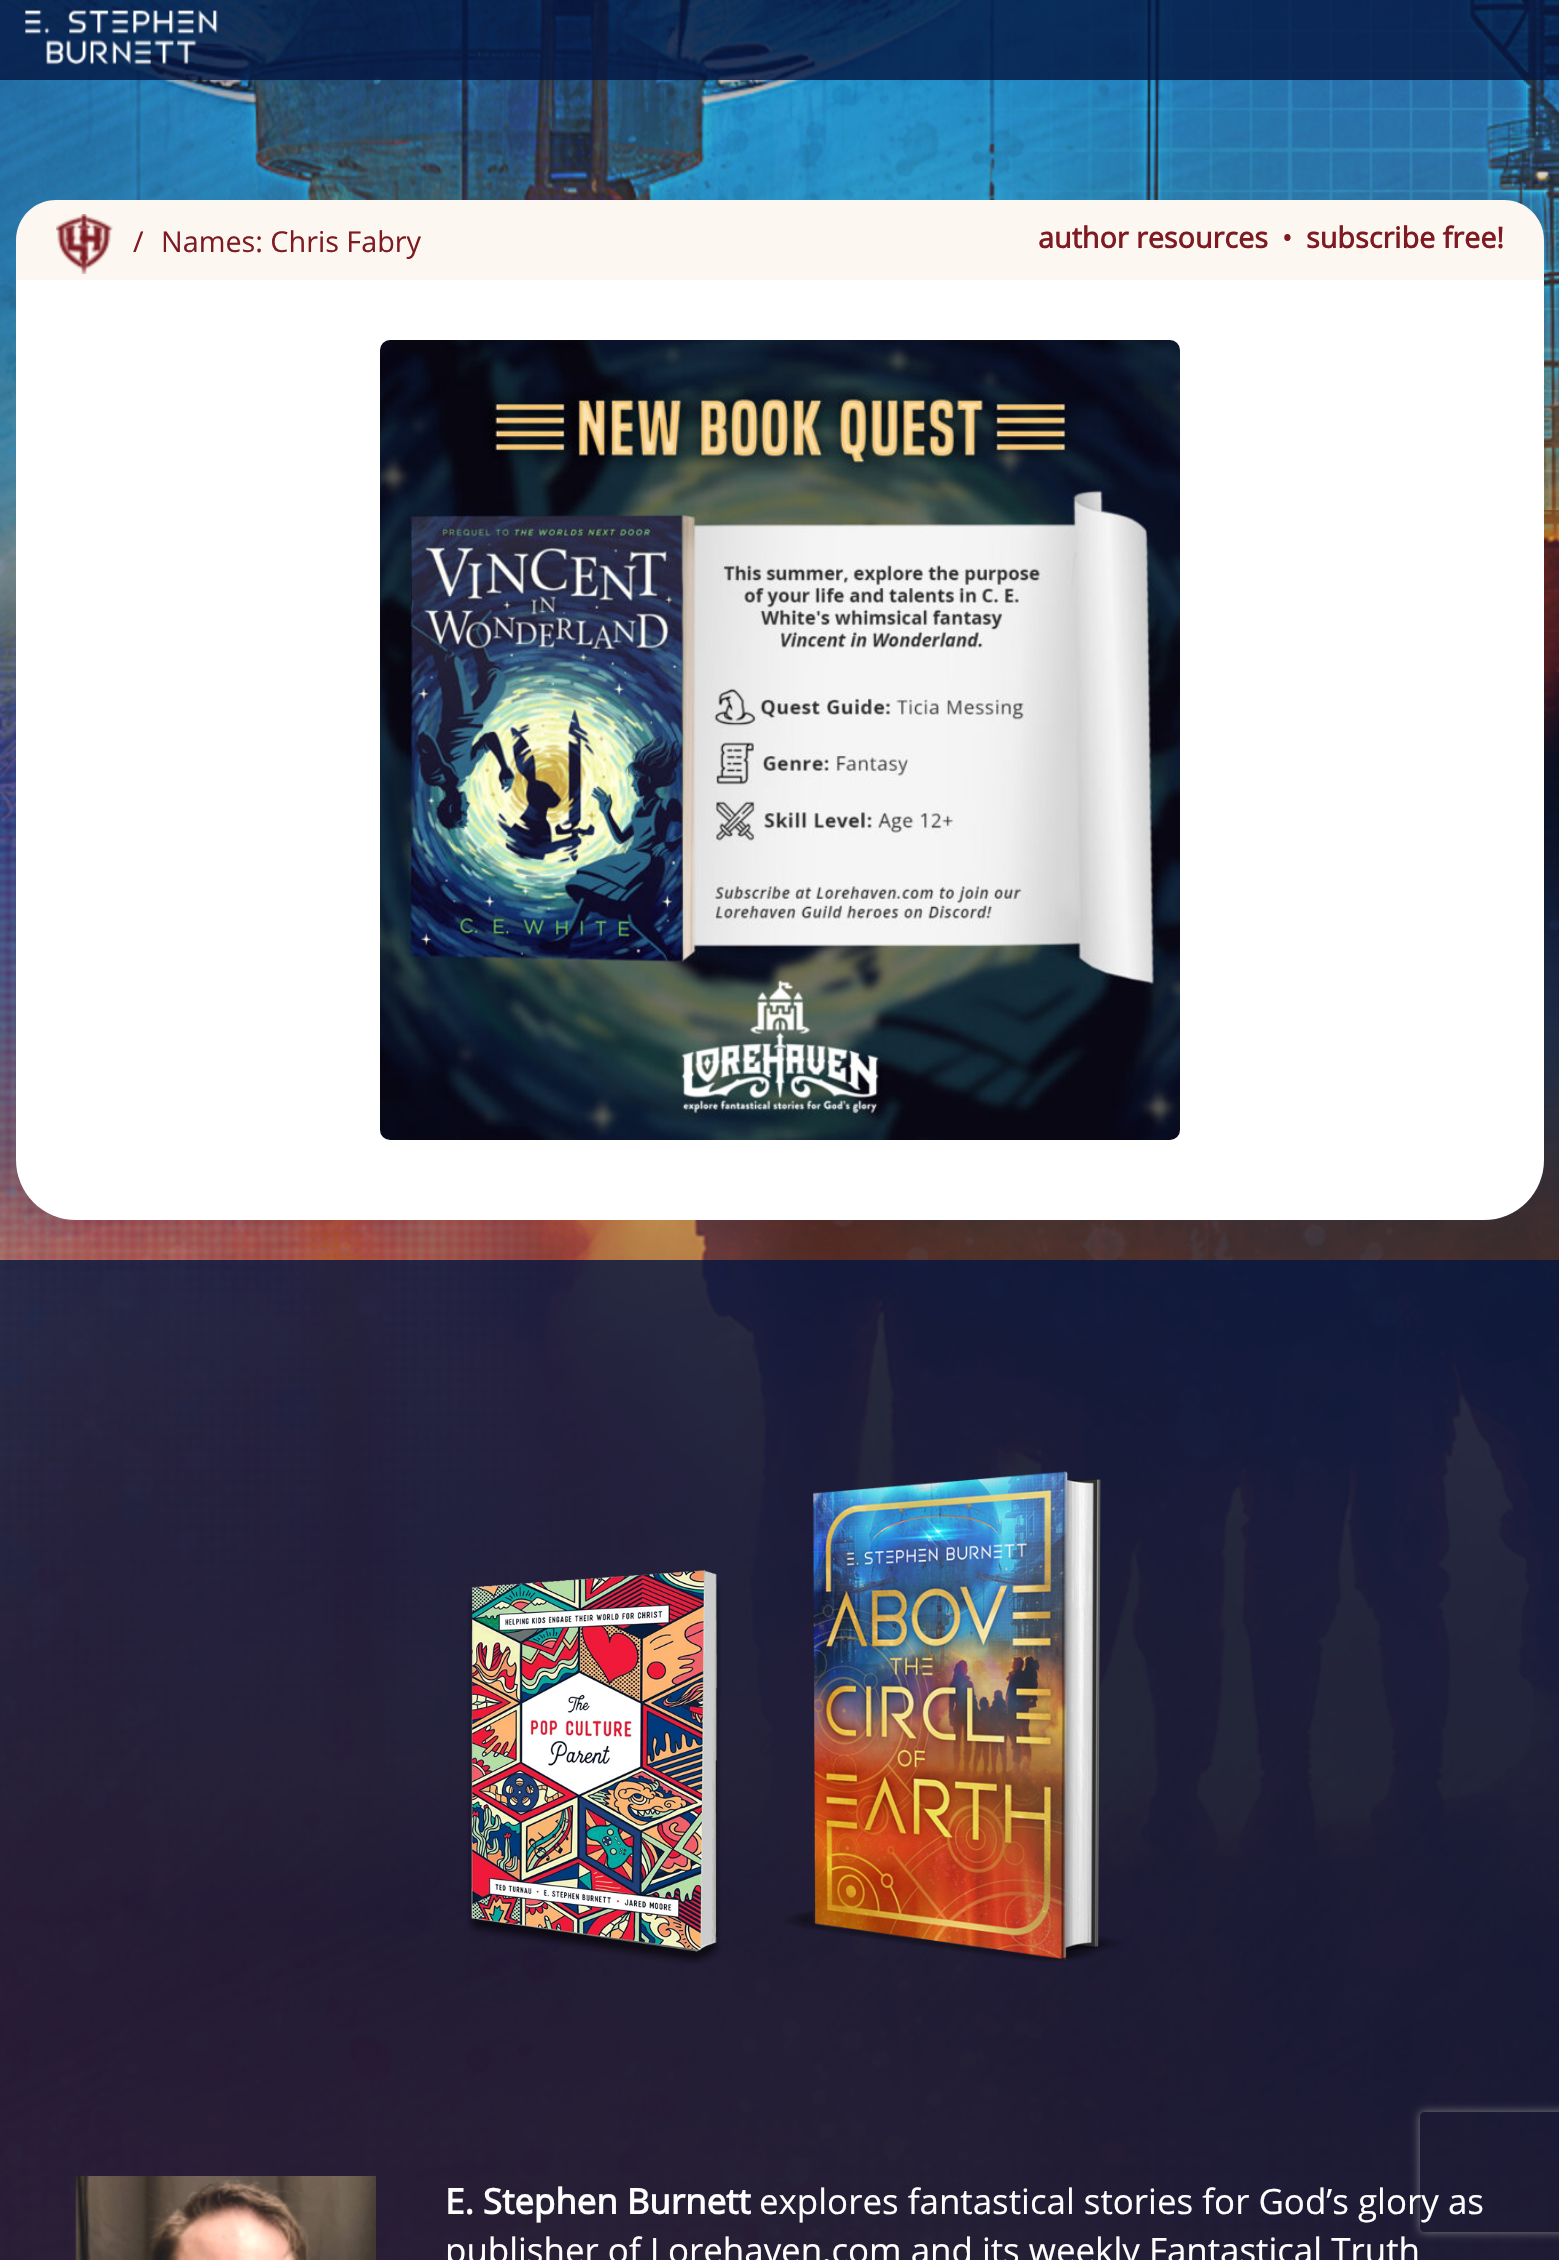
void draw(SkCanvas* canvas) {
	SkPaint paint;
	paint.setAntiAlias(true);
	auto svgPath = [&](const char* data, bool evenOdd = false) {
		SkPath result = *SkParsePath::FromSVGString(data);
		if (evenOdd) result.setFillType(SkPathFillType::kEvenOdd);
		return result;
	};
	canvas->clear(0xffffffff);
	canvas->drawImageRect(SkImages::DeferredFromEncodedData(SkData::MakeFromFileName("img1.png")), SkRect::MakeXYWH(0, 0, 1559, 2260), SkSamplingOptions());
	paint.setColor(0xcc02143e);
	canvas->drawRect(SkRect::MakeXYWH(0, 0, 1559, 80), paint);
	canvas->drawImageRect(SkImages::DeferredFromEncodedData(SkData::MakeFromFileName("img2.png")), SkRect::MakeXYWH(25, 10, 193, 55), SkSamplingOptions());
	paint.setColor(0xffffffff);
	canvas->drawRoundRect(SkRect::MakeXYWH(16, 200, 1528, 1020), 60, 60, paint);
	paint.setColor(0xfffcf7f0);
	canvas->drawPath(svgPath("M56 200H1504C1526 200 1544 218 1544 240V280H16V240C16 218 34 200 56 200Z"), paint);
	canvas->drawImageRect(SkImages::DeferredFromEncodedData(SkData::MakeFromFileName("img3.png")), SkRect::MakeXYWH(56, 214, 57, 60), SkSamplingOptions());
	SkFont f1(fontMgr->matchFamilyStyle("Open Sans", SkFontStyle::Normal()), 28.75);
	f1.setSubpixel(true);
	paint.setColor(0xff7e1a22);
	canvas->drawString("/", 133, 252, f1, paint);
	canvas->drawString("Names: Chris Fabry", 161, 252, f1, paint);
	SkFont f2(fontMgr->matchFamilyStyle("Open Sans", SkFontStyle::Bold()), 28.75);
	f2.setSubpixel(true);
	canvas->drawString("author resources", 1038, 248, f2, paint);
	canvas->drawString("•", 1282, 248, f1, paint);
	canvas->drawString("subscribe free!", 1306, 248, f2, paint);
	paint.setColor(0xfff3f2f2);
	canvas->drawRoundRect(SkRect::MakeXYWH(380, 340, 800, 800), 10, 10, paint);
	canvas->drawImageRect(SkImages::DeferredFromEncodedData(SkData::MakeFromFileName("img4.png")), SkRect::MakeXYWH(380, 340, 800, 800), SkSamplingOptions());
	paint.setColor(0xcc02143e);
	canvas->drawRect(SkRect::MakeXYWH(0, 1260, 1559, 1000), paint);
	canvas->save();
	canvas->clipPath(svgPath("M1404 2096H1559V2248H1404ZM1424 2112H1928C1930 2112 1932 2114 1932 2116V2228C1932 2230 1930 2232 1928 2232H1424C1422 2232 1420 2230 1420 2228V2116C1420 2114 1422 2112 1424 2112Z", true), true);
	paint.setColor(0xff808080);
	paint.setMaskFilter(SkMaskFilter::MakeBlur(kNormal_SkBlurStyle, 5));
	canvas->drawRoundRect(SkRect::MakeXYWH(1420, 2112, 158, 120), 4, 4, paint);
	paint.setMaskFilter(nullptr);
	canvas->restore();
	canvas->drawImageRect(SkImages::DeferredFromEncodedData(SkData::MakeFromFileName("img5.png")), SkRect::MakeXYWH(467, 1570, 254, 394), SkSamplingOptions());
	canvas->drawImageRect(SkImages::DeferredFromEncodedData(SkData::MakeFromFileName("img6.png")), SkRect::MakeXYWH(784, 1471, 337, 491), SkSamplingOptions());
	canvas->drawImageRect(SkImages::DeferredFromEncodedData(SkData::MakeFromFileName("img7.png")), SkRect::MakeXYWH(75, 2176, 301, 84), SkSamplingOptions());
	SkFont f3(fontMgr->matchFamilyStyle("Open Sans", SkFontStyle::Bold()), 34.9);
	f3.setSubpixel(true);
	paint.setColor(0xffffffff);
	canvas->drawString("E. Stephen Burnett", 445, 2214, f3, paint);
	SkFont f4(fontMgr->matchFamilyStyle("Open Sans", SkFontStyle::Normal()), 34.9);
	f4.setSubpixel(true);
	canvas->drawString("explores fantastical stories for God’s glory as", 759, 2214, f4, paint);
	canvas->drawString("publisher of Lorehaven.com and its weekly Fantastical Truth", 445, 2263, f4, paint);
}
